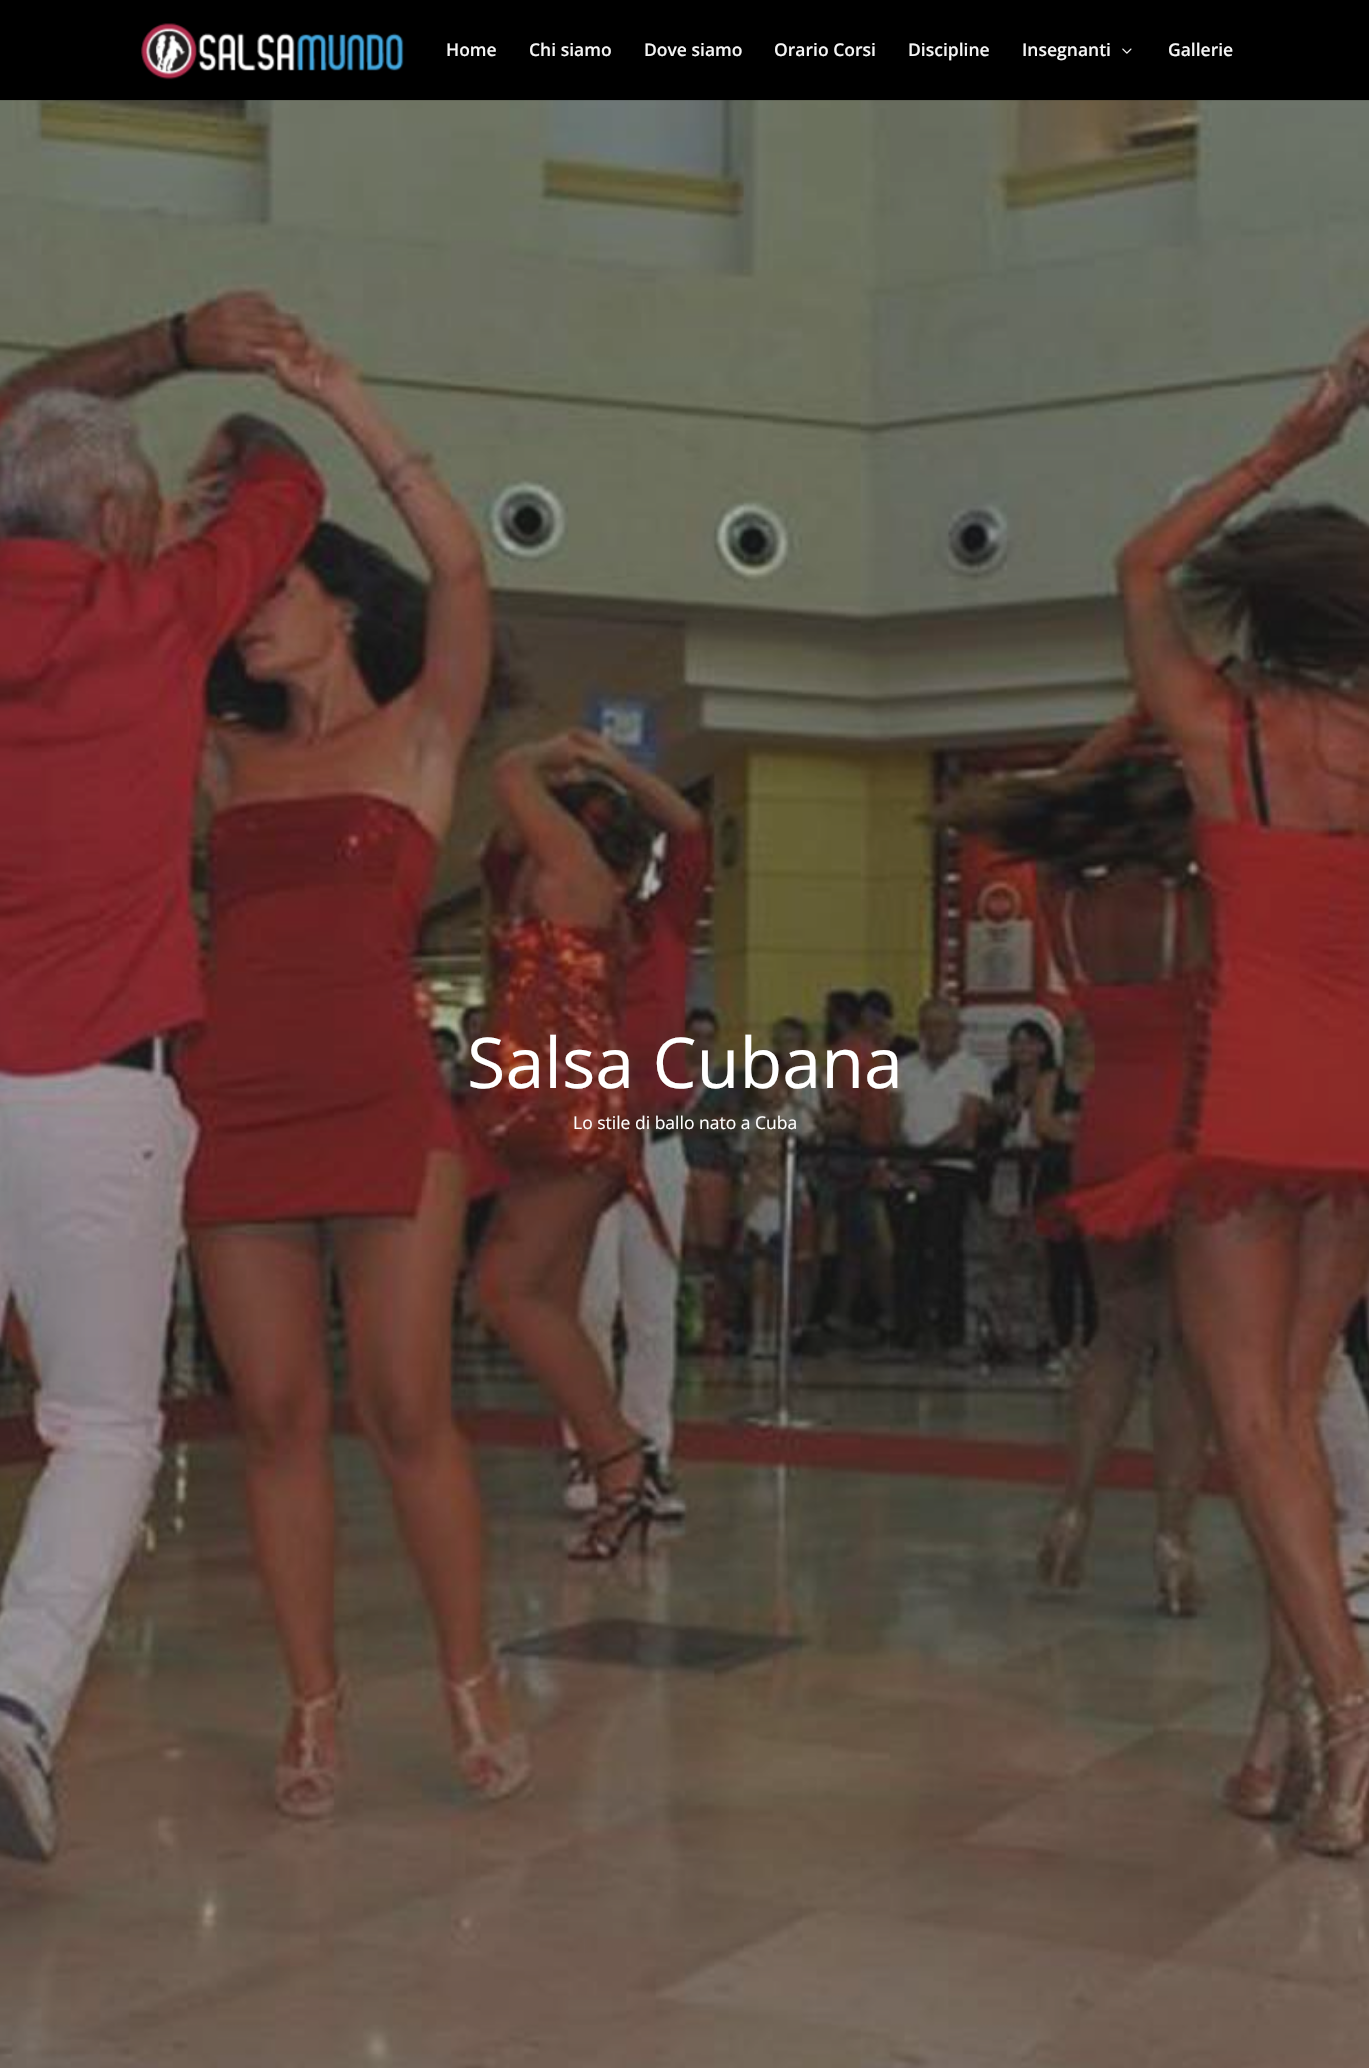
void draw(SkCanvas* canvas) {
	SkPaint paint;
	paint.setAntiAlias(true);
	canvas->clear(0xffffffff);
	canvas->drawImageRect(SkImages::DeferredFromEncodedData(SkData::MakeFromFileName("img3.png")), SkRect::MakeXYWH(0, 100, 1369, 1968), SkSamplingOptions());
	paint.setColor(0x1a000000);
	canvas->drawRect(SkRect::MakeXYWH(0, 100, 1369, 1), paint);
	paint.setColor(0xff000000);
	canvas->drawRect(SkRect::MakeXYWH(0, 0, 1369, 100), paint);
	canvas->drawImageRect(SkImages::DeferredFromEncodedData(SkData::MakeFromFileName("img1.png")), SkRect::MakeXYWH(141, 23, 263, 57), SkSamplingOptions());
	SkFont f1(fontMgr->matchFamilyStyle("Open Sans", SkFontStyle(600, SkFontStyle::kNormal_Width, SkFontStyle::kUpright_Slant)), 17.5);
	f1.setSubpixel(true);
	paint.setColor(0xfff5f5f5);
	canvas->drawString("Home", 446, 56, f1, paint);
	canvas->drawString("Chi siamo", 529, 56, f1, paint);
	canvas->drawString("Dove siamo", 644, 56, f1, paint);
	canvas->drawString("Orario Corsi", 774, 56, f1, paint);
	canvas->drawString("Discipline", 908, 56, f1, paint);
	canvas->drawString("Insegnanti", 1022, 56, f1, paint);
	canvas->drawImageRect(SkImages::DeferredFromEncodedData(SkData::MakeFromFileName("img2.png")), SkRect::MakeXYWH(1122, 48, 10, 6), SkSamplingOptions());
	canvas->drawString("Gallerie", 1168, 56, f1, paint);
	SkFont f2(fontMgr->matchFamilyStyle("Open Sans", SkFontStyle::Normal()), 70);
	f2.setSubpixel(true);
	paint.setColor(0xffffffff);
	canvas->drawString("Salsa Cubana", 467, 1088, f2, paint);
	SkFont f3(fontMgr->matchFamilyStyle("Open Sans", SkFontStyle::Normal()), 17.5);
	f3.setSubpixel(true);
	canvas->drawString("Lo stile di ballo nato a Cuba", 573, 1129, f3, paint);
}
